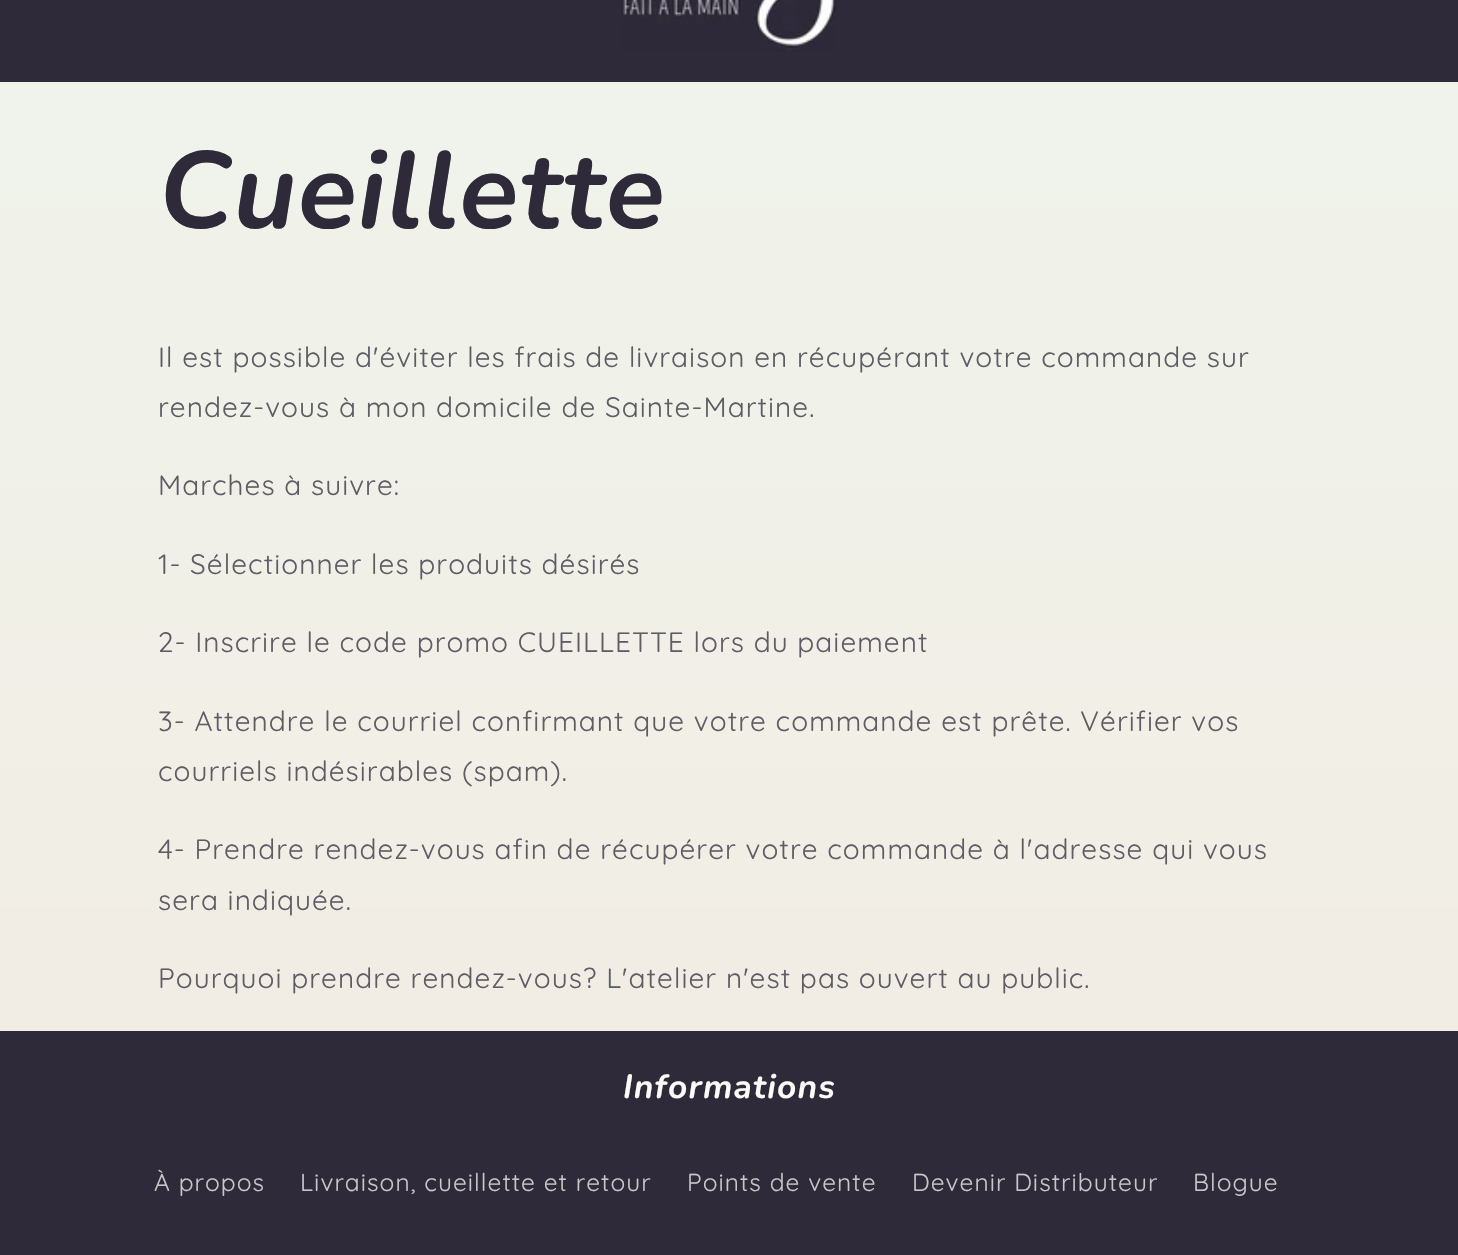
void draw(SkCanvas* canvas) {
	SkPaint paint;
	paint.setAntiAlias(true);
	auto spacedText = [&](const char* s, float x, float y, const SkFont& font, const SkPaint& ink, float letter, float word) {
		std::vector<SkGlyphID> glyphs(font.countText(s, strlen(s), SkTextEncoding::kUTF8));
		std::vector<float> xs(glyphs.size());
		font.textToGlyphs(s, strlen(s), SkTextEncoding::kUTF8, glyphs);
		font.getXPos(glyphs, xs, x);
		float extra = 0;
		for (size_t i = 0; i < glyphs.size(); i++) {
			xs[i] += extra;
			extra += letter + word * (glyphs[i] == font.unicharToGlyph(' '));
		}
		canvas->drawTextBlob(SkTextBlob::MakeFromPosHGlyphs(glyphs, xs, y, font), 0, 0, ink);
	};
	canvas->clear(0xffffffff);
	{
		const SkColor colors[] = {0xfff0f4ec, 0xfff1ebe2};
		const float stops[] = {0, 1};
		const SkPoint ends[] = {{730, 0}, {730, 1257}};
		paint.setShader(SkGradientShader::MakeLinear(ends, colors, stops, 2, SkTileMode::kClamp));
		paint.setAlpha(255);
	}
	canvas->drawRect(SkRect::MakeXYWH(0, 82, 1458, 949), paint);
	paint.setShader(nullptr);
	paint.setColor(0xff2e2a39);
	canvas->drawRect(SkRect::MakeXYWH(0, 0, 1458, 82), paint);
	canvas->drawImageRect(SkImages::DeferredFromEncodedData(SkData::MakeFromFileName("img1.png")), SkRect::MakeXYWH(621, 0, 215, 52), SkSamplingOptions());
	SkFont f1(fontMgr->matchFamilyStyle("Nunito", SkFontStyle::BoldItalic()), 109);
	f1.setSubpixel(true);
	spacedText("Cueillette", 158, 228, f1, paint, 1.25, 0);
	SkFont f2(fontMgr->matchFamilyStyle("Quicksand", SkFontStyle::Normal()), 28);
	f2.setSubpixel(true);
	paint.setColor(0xff5f5c65);
	spacedText("Il est possible d'éviter les frais de livraison en récupérant votre commande sur", 158, 367, f2, paint, 1.05, 0);
	spacedText("rendez-vous à mon domicile de Sainte-Martine.", 158, 417, f2, paint, 1.05, 0);
	spacedText("Marches à suivre:", 158, 495, f2, paint, 1.05, 0);
	spacedText("1- Sélectionner les produits désirés", 158, 574, f2, paint, 1.05, 0);
	spacedText("2- Inscrire le code promo CUEILLETTE lors du paiement", 158, 652, f2, paint, 1.05, 0);
	spacedText("3- Attendre le courriel confirmant que votre commande est prête. Vérifier vos", 158, 731, f2, paint, 1.05, 0);
	spacedText("courriels indésirables (spam).", 158, 781, f2, paint, 1.05, 0);
	spacedText("4- Prendre rendez-vous afin de récupérer votre commande à l'adresse qui vous", 158, 859, f2, paint, 1.05, 0);
	spacedText("sera indiquée.", 158, 910, f2, paint, 1.05, 0);
	spacedText("Pourquoi prendre rendez-vous? L'atelier n'est pas ouvert au public.", 158, 988, f2, paint, 1.05, 0);
	paint.setColor(0xff2e2a39);
	canvas->drawRect(SkRect::MakeXYWH(0, 1031, 1458, 224), paint);
	SkFont f3(fontMgr->matchFamilyStyle("Nunito", SkFontStyle::BoldItalic()), 33.5);
	f3.setSubpixel(true);
	paint.setColor(0xfffdfbf7);
	spacedText("Informations", 623, 1098, f3, paint, 1.25, 0);
	SkFont f4(fontMgr->matchFamilyStyle("Quicksand", SkFontStyle::Normal()), 24.5);
	f4.setSubpixel(true);
	paint.setColor(0xffc9c7c8);
	spacedText("À propos", 154, 1191, f4, paint, 1.05, 0);
	spacedText("Livraison, cueillette et retour", 300, 1191, f4, paint, 1.05, 0);
	spacedText("Points de vente", 687, 1191, f4, paint, 1.05, 0);
	spacedText("Devenir Distributeur", 912, 1191, f4, paint, 1.05, 0);
	spacedText("Blogue", 1193, 1191, f4, paint, 1.05, 0);
}
